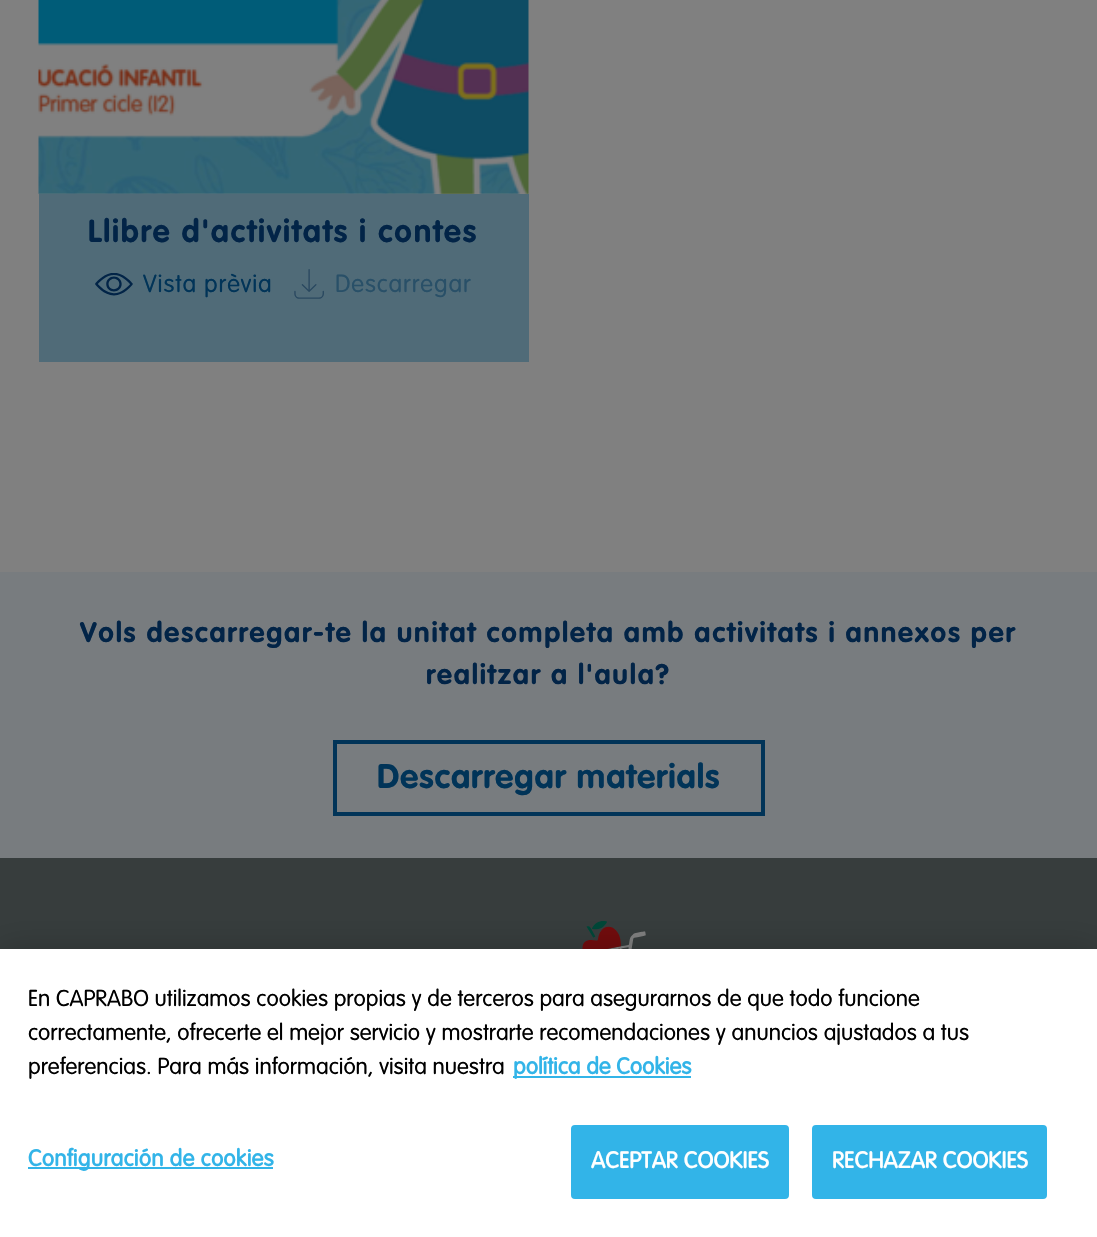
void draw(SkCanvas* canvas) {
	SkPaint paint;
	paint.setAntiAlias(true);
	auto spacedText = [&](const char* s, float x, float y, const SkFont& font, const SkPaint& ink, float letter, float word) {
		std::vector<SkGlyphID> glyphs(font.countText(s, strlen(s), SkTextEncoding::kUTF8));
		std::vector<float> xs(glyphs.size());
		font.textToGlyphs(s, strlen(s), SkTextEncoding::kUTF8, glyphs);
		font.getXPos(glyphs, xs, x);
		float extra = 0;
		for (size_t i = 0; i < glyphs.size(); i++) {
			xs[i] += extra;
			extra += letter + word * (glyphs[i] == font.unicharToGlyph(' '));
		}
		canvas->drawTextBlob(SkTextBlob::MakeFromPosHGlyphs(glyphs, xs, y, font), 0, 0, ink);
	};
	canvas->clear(0xff808080);
	canvas->drawImageRect(SkImages::DeferredFromEncodedData(SkData::MakeFromFileName("img1.png")), SkRect::MakeXYWH(38, 0, 491, 194), SkSamplingOptions());
	paint.setColor(0xff506b78);
	canvas->drawRect(SkRect::MakeXYWH(39, 194, 490, 168), paint);
	SkFont f1(fontMgr->matchFamilyStyle("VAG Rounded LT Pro", SkFontStyle::Bold()), 31.5);
	f1.setSubpixel(true);
	paint.setColor(0xff022447);
	spacedText("Llibre d'activitats i contes", 88, 242, f1, paint, 1.75, 0);
	canvas->drawImageRect(SkImages::DeferredFromEncodedData(SkData::MakeFromFileName("img2.png")), SkRect::MakeXYWH(95, 273, 38, 23), SkSamplingOptions());
	SkFont f2(fontMgr->matchFamilyStyle("VAG Rounded LT Pro", SkFontStyle(300, SkFontStyle::kNormal_Width, SkFontStyle::kUpright_Slant)), 24.5);
	f2.setSubpixel(true);
	paint.setColor(0xff013458);
	spacedText("Vista prèvia", 143, 292, f2, paint, 0.9, 0);
	canvas->drawImageRect(SkImages::DeferredFromEncodedData(SkData::MakeFromFileName("img3.png")), SkRect::MakeXYWH(294, 269, 30, 30), SkSamplingOptions());
	paint.setColor(0xff295068);
	spacedText("Descarregar", 335, 292, f2, paint, 0.9, 0);
	paint.setColor(0xff787c7f);
	canvas->drawRect(SkRect::MakeXYWH(0, 572, 1097, 286), paint);
	SkFont f3(fontMgr->matchFamilyStyle("VAG Rounded LT Pro", SkFontStyle::Bold()), 28);
	f3.setSubpixel(true);
	paint.setColor(0xff022447);
	spacedText("Vols descarregar-te la unitat completa amb activitats i annexos per", 80, 642, f3, paint, 1.75, 0);
	spacedText("realitzar a l'aula?", 426, 684, f3, paint, 1.75, 0);
	paint.setStroke(true);
	paint.setStrokeWidth(4);
	paint.setColor(0xff013458);
	canvas->drawRect(SkRect::MakeXYWH(335, 742, 428, 72), paint);
	SkFont f4(fontMgr->matchFamilyStyle("VAG Rounded LT Pro", SkFontStyle::Bold()), 33.6);
	f4.setSubpixel(true);
	paint.setStroke(false);
	spacedText("Descarregar materials", 377, 788, f4, paint, 0.9, 0);
	paint.setColor(0xff373d3d);
	canvas->drawRect(SkRect::MakeXYWH(0, 858, 1097, 91), paint);
	canvas->drawImageRect(SkImages::DeferredFromEncodedData(SkData::MakeFromFileName("img4.png")), SkRect::MakeXYWH(582, 921, 64, 28), SkSamplingOptions());
	paint.setColor(0x33000000);
	paint.setMaskFilter(SkMaskFilter::MakeBlur(kNormal_SkBlurStyle, 16));
	canvas->drawRect(SkRect::MakeXYWH(0, 949, 1097, 288), paint);
	paint.setMaskFilter(nullptr);
	paint.setColor(0xffffffff);
	canvas->drawRect(SkRect::MakeXYWH(0, 949, 1097, 288), paint);
	SkFont f5(fontMgr->matchFamilyStyle("VAG Rounded LT Pro", SkFontStyle(300, SkFontStyle::kNormal_Width, SkFontStyle::kUpright_Slant)), 22.75);
	f5.setSubpixel(true);
	paint.setColor(0xff000000);
	canvas->drawString("En CAPRABO utilizamos cookies propias y de terceros para asegurarnos de que todo funcione", 28, 1006, f5, paint);
	canvas->drawString("correctamente, ofrecerte el mejor servicio y mostrarte recomendaciones y anuncios ajustados a tus", 28, 1040, f5, paint);
	canvas->drawString("preferencias. Para más información, visita nuestra", 28, 1074, f5, paint);
	paint.setColor(0xff32b4e8);
	canvas->drawRect(SkRect::MakeXYWH(513, 1076, 178, 2), paint);
	SkFont f6(fontMgr->matchFamilyStyle("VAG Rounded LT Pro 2", SkFontStyle::Bold()), 22.75);
	f6.setSubpixel(true);
	canvas->drawString("política de Cookies", 513, 1074, f6, paint);
	canvas->drawRect(SkRect::MakeXYWH(28, 1167, 245, 2), paint);
	spacedText("Configuración de cookies", 28, 1166, f6, paint, 0.25, 0);
	canvas->drawRoundRect(SkRect::MakeXYWH(572, 1126, 216, 72), 3, 3, paint);
	paint.setStroke(true);
	paint.setStrokeWidth(2);
	canvas->drawRoundRect(SkRect::MakeXYWH(572, 1126, 216, 72), 3, 3, paint);
	paint.setStroke(false);
	paint.setColor(0xffffffff);
	spacedText("ACEPTAR COOKIES", 591, 1168, f6, paint, 0.25, 0);
	paint.setColor(0xff32b4e8);
	canvas->drawRoundRect(SkRect::MakeXYWH(813, 1126, 233, 72), 3, 3, paint);
	paint.setStroke(true);
	canvas->drawRoundRect(SkRect::MakeXYWH(813, 1126, 233, 72), 3, 3, paint);
	paint.setStroke(false);
	paint.setColor(0xffffffff);
	spacedText("RECHAZAR COOKIES", 832, 1168, f6, paint, 0.25, 0);
}
